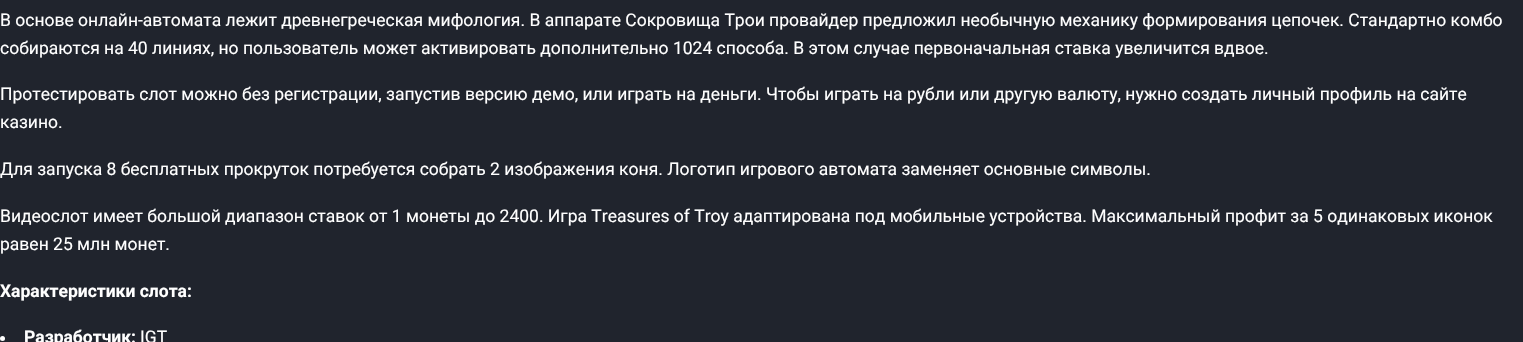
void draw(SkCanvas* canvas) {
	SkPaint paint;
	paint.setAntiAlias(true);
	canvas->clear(0xff20242d);
	SkFont f1(fontMgr->matchFamilyStyle("Roboto", SkFontStyle::Normal()), 17.5);
	f1.setSubpixel(true);
	paint.setColor(0xffffffff);
	canvas->drawString("В основе онлайн-автомата лежит древнегреческая мифология. В аппарате Сокровища Трои провайдер предложил необычную механику формирования цепочек. Стандартно комбо", 0, 26, f1, paint);
	canvas->drawString("собираются на 40 линиях, но пользователь может активировать дополнительно 1024 способа. В этом случае первоначальная ставка увеличится вдвое.", 0, 54, f1, paint);
	canvas->drawString("Протестировать слот можно без регистрации, запустив версию демо, или играть на деньги. Чтобы играть на рубли или другую валюту, нужно создать личный профиль на сайте", 0, 100, f1, paint);
	canvas->drawString("казино.", 0, 128, f1, paint);
	canvas->drawString("Для запуска 8 бесплатных прокруток потребуется собрать 2 изображения коня. Логотип игрового автомата заменяет основные символы.", 0, 175, f1, paint);
	canvas->drawString("Видеослот имеет большой диапазон ставок от 1 монеты до 2400. Игра Treasures of Troy адаптирована под мобильные устройства. Максимальный профит за 5 одинаковых иконок", 0, 222, f1, paint);
	canvas->drawString("равен 25 млн монет.", 0, 250, f1, paint);
	SkFont f2(fontMgr->matchFamilyStyle("Roboto", SkFontStyle::Bold()), 17.5);
	f2.setSubpixel(true);
	canvas->drawString("Характеристики слота:", 0, 297, f2, paint);
	canvas->drawCircle(2.5, 338.5, 2.5, paint);
	canvas->drawString("Разработчик:", 24, 343, f2, paint);
	canvas->drawString("IGT", 140, 343, f1, paint);
}
